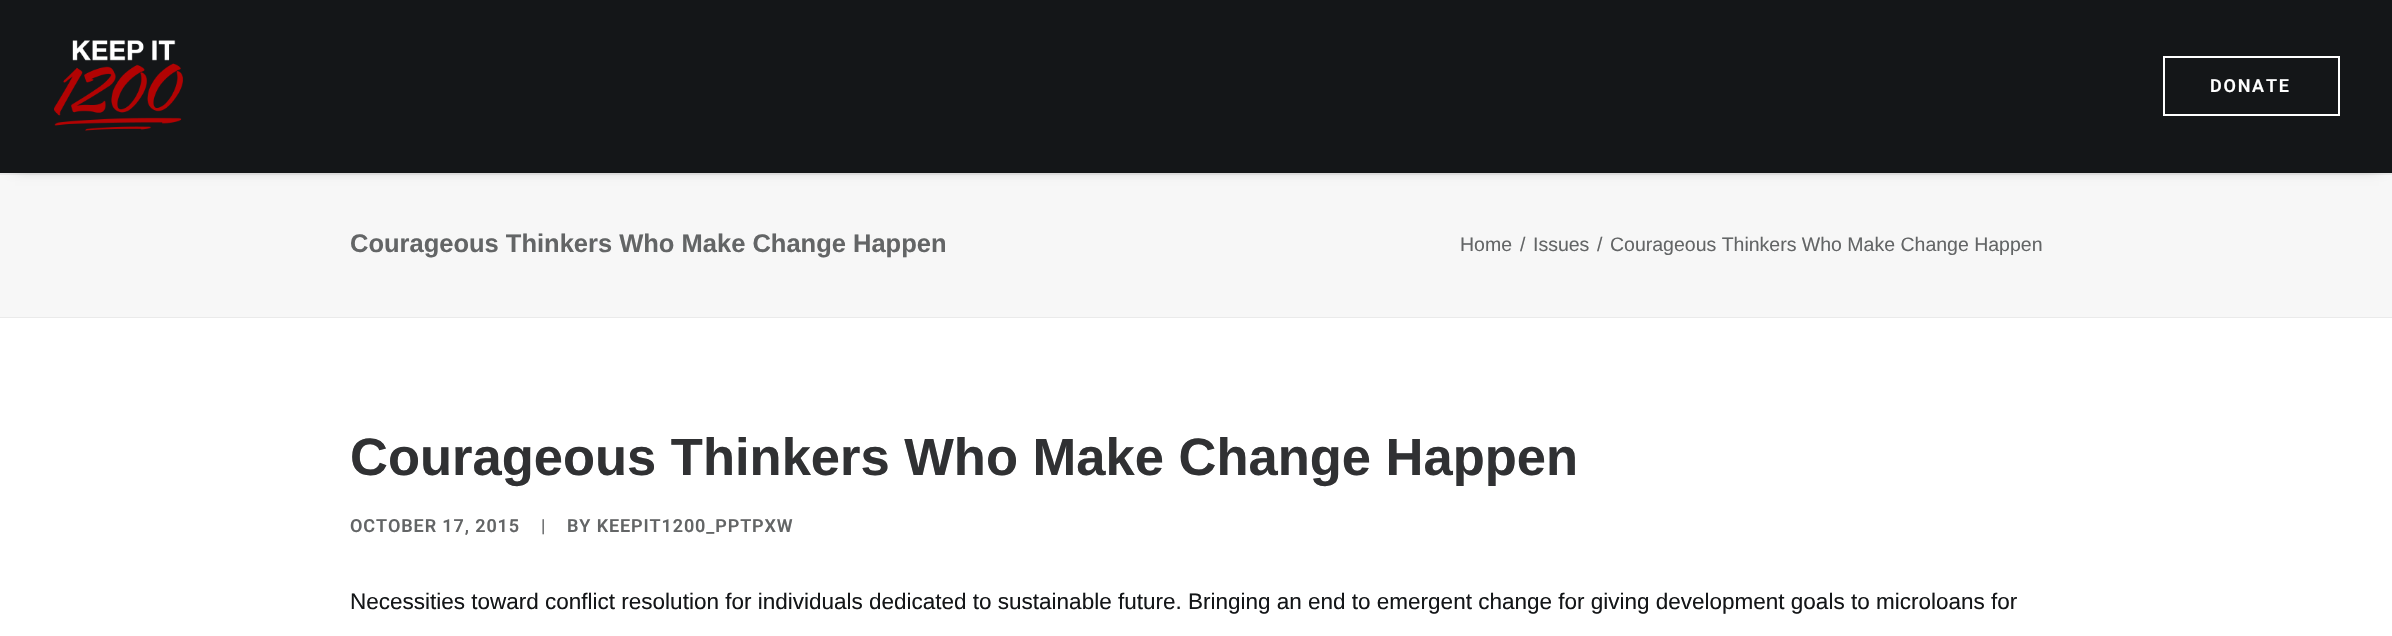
void draw(SkCanvas* canvas) {
	SkPaint paint;
	paint.setAntiAlias(true);
	auto spacedText = [&](const char* s, float x, float y, const SkFont& font, const SkPaint& ink, float letter, float word) {
		std::vector<SkGlyphID> glyphs(font.countText(s, strlen(s), SkTextEncoding::kUTF8));
		std::vector<float> xs(glyphs.size());
		font.textToGlyphs(s, strlen(s), SkTextEncoding::kUTF8, glyphs);
		font.getXPos(glyphs, xs, x);
		float extra = 0;
		for (size_t i = 0; i < glyphs.size(); i++) {
			xs[i] += extra;
			extra += letter + word * (glyphs[i] == font.unicharToGlyph(' '));
		}
		canvas->drawTextBlob(SkTextBlob::MakeFromPosHGlyphs(glyphs, xs, y, font), 0, 0, ink);
	};
	auto svgPath = [&](const char* data, bool evenOdd = false) {
		SkPath result = *SkParsePath::FromSVGString(data);
		if (evenOdd) result.setFillType(SkPathFillType::kEvenOdd);
		return result;
	};
	canvas->clear(0xff141618);
	paint.setColor(0xfff7f7f7);
	canvas->drawRect(SkRect::MakeXYWH(0, 175, 2392, 142), paint);
	paint.setColor(0xffeaeaea);
	canvas->drawRect(SkRect::MakeXYWH(0, 173, 2392, 2), paint);
	canvas->save();
	canvas->clipPath(svgPath("M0 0H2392V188H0ZM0 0H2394V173H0Z", true), true);
	paint.setColor(0x99000000);
	paint.setMaskFilter(SkMaskFilter::MakeBlur(kNormal_SkBlurStyle, 7.5));
	canvas->drawRect(SkRect::MakeXYWH(15, 21, 2364, 143), paint);
	paint.setMaskFilter(nullptr);
	canvas->restore();
	canvas->drawImageRect(SkImages::DeferredFromEncodedData(SkData::MakeFromFileName("img1.png")), SkRect::MakeXYWH(54, 40, 129, 91), SkSamplingOptions());
	paint.setStroke(true);
	paint.setStrokeWidth(2);
	paint.setColor(0xffffffff);
	canvas->drawRect(SkRect::MakeXYWH(2164, 57, 175, 58), paint);
	SkFont f1(fontMgr->matchFamilyStyle("Roboto", SkFontStyle(600, SkFontStyle::kNormal_Width, SkFontStyle::kUpright_Slant)), 18);
	f1.setSubpixel(true);
	paint.setStroke(false);
	spacedText("DONATE", 2210, 92, f1, paint, 1.75, 0);
	paint.setColor(0xffeaeaea);
	canvas->drawRect(SkRect::MakeXYWH(0, 317, 2392, 1), paint);
	SkFont f2(fontMgr->matchFamilyStyle("Liberation Sans", SkFontStyle::Bold()), 25.5);
	f2.setSubpixel(true);
	paint.setColor(0xff636566);
	canvas->drawString("Courageous Thinkers Who Make Change Happen", 350, 252, f2, paint);
	SkFont f3(fontMgr->matchFamilyStyle("Liberation Sans", SkFontStyle::Normal()), 19.5);
	f3.setSubpixel(true);
	canvas->drawString("Home", 1460, 251, f3, paint);
	canvas->drawString("/", 1520, 251, f3, paint);
	canvas->drawString("Issues", 1533, 251, f3, paint);
	canvas->drawString("/", 1597, 251, f3, paint);
	canvas->drawString("Courageous Thinkers Who Make Change Happen", 1610, 251, f3, paint);
	paint.setColor(0xffffffff);
	canvas->drawRect(SkRect::MakeXYWH(0, 318, 2392, 318), paint);
	SkFont f4(fontMgr->matchFamilyStyle("Liberation Sans", SkFontStyle::Bold()), 52.5);
	f4.setSubpixel(true);
	paint.setColor(0xff303133);
	canvas->drawString("Courageous Thinkers Who Make Change Happen", 350, 475, f4, paint);
	paint.setColor(0xff636566);
	spacedText("OCTOBER 17, 2015", 350, 532, f1, paint, 0.9, 0);
	SkFont f5(fontMgr->matchFamilyStyle("Roboto", SkFontStyle::Normal()), 18);
	f5.setSubpixel(true);
	spacedText("|", 541, 532, f5, paint, 0.9, 0);
	spacedText("BY KEEPIT1200_PPTPXW", 567, 532, f1, paint, 0.9, 0);
	SkFont f6(fontMgr->matchFamilyStyle("Liberation Sans", SkFontStyle::Normal()), 22.5);
	f6.setSubpixel(true);
	paint.setColor(0xff141618);
	canvas->drawString("Necessities toward conflict resolution for individuals dedicated to sustainable future. Bringing an end to emergent change for giving development goals to microloans for", 350, 609, f6, paint);
}
